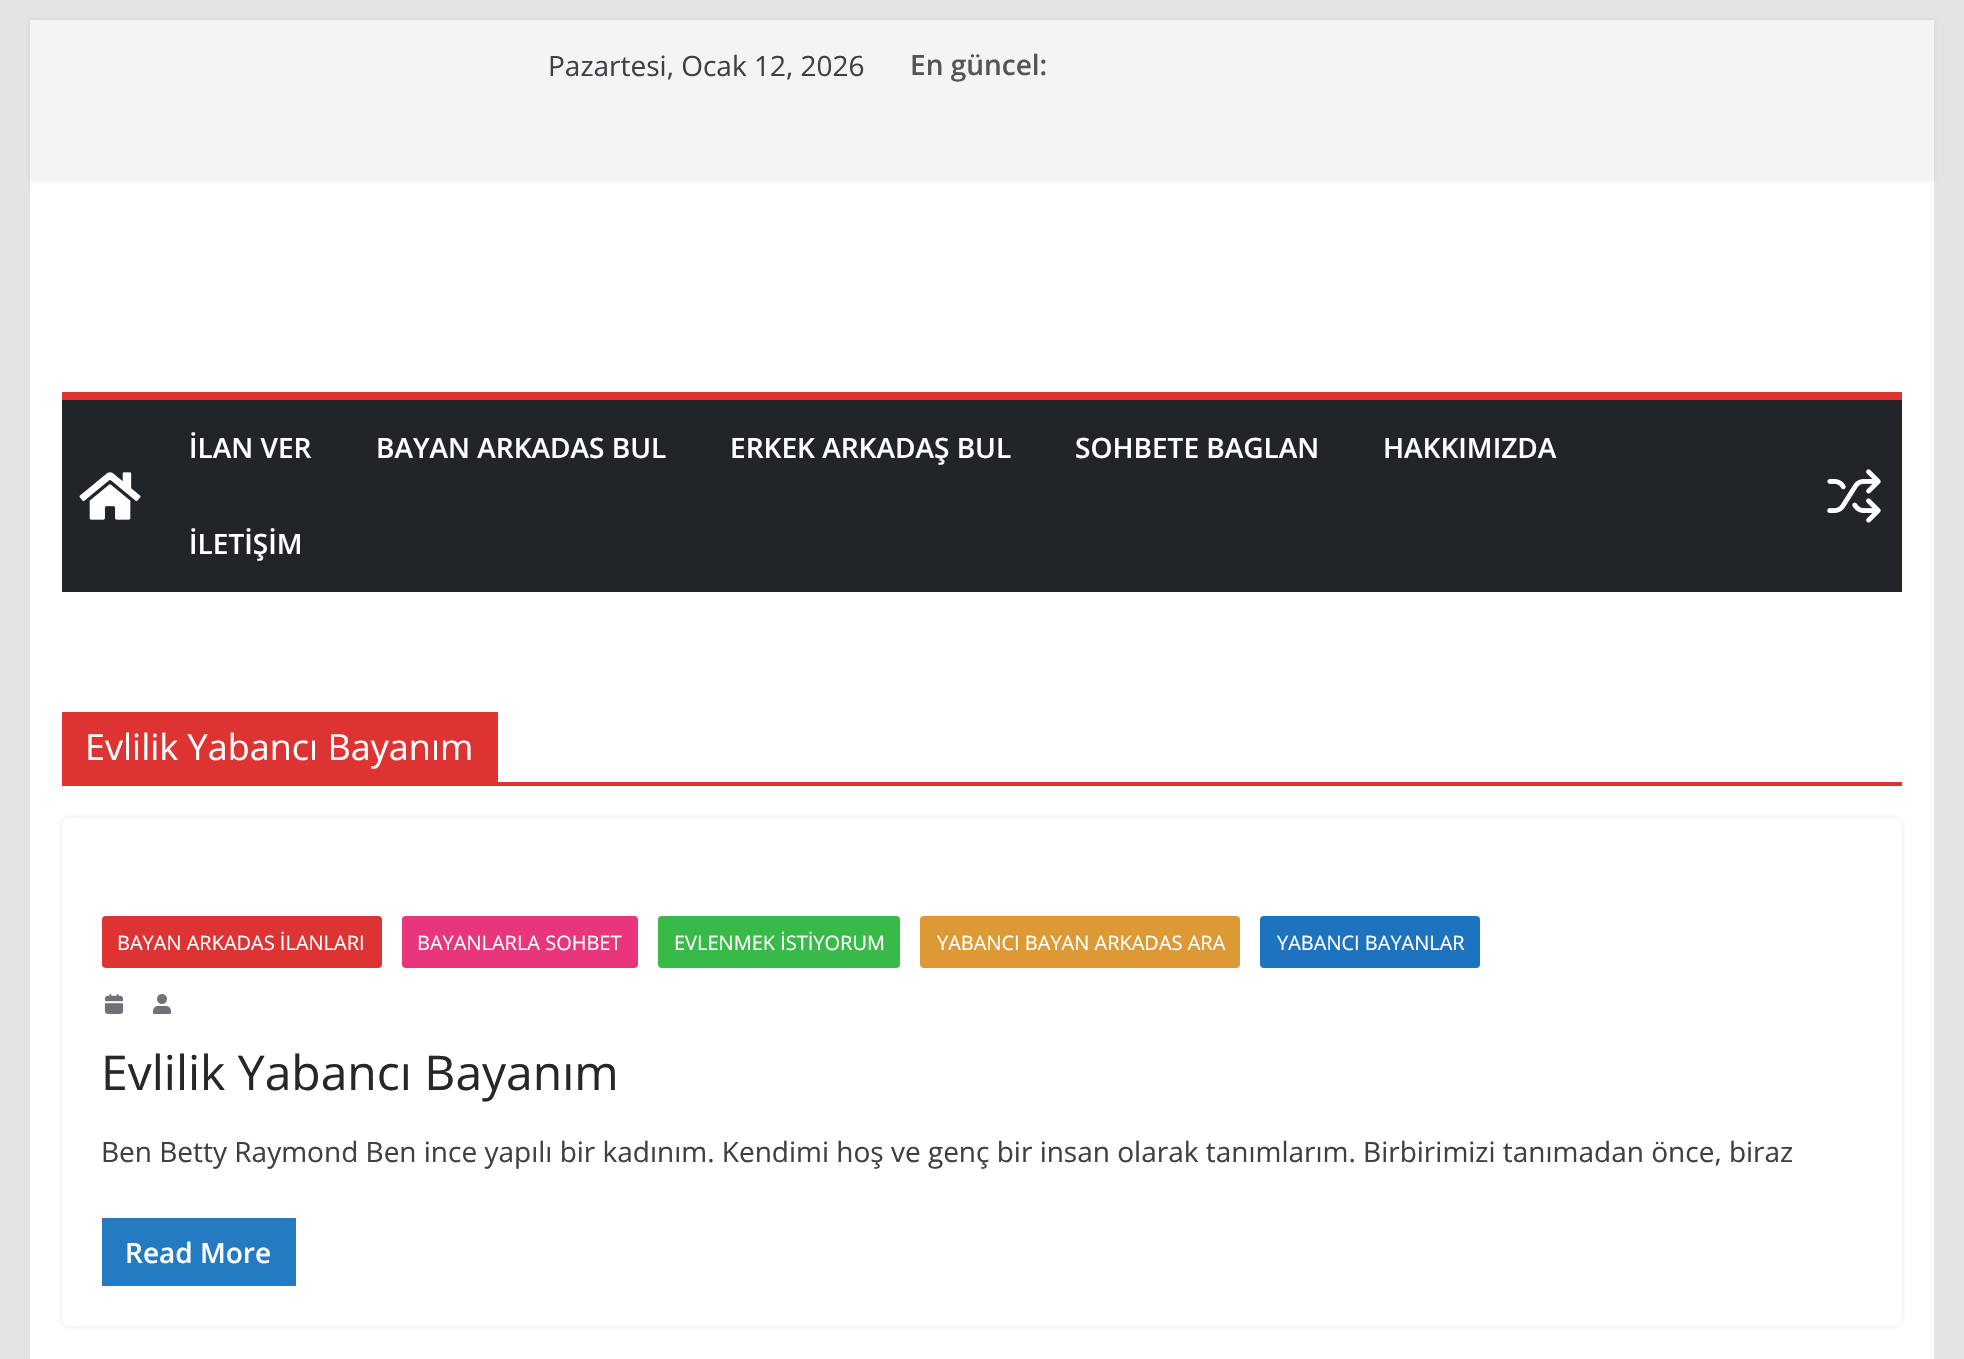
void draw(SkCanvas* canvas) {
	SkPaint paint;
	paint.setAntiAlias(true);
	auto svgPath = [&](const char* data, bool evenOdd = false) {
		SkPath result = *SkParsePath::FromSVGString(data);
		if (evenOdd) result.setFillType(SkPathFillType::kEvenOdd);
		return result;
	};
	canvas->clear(0xffe4e4e7);
	paint.setColor(0xffffffff);
	canvas->drawRect(SkRect::MakeXYWH(30, 180, 1904, 1179), paint);
	paint.setColor(0x1a000000);
	paint.setMaskFilter(SkMaskFilter::MakeBlur(kNormal_SkBlurStyle, 2));
	canvas->drawRect(SkRect::MakeXYWH(30, 20, 1904, 160), paint);
	paint.setMaskFilter(nullptr);
	paint.setColor(0xfff4f4f5);
	canvas->drawRect(SkRect::MakeXYWH(30, 20, 1904, 160), paint);
	SkFont f1(fontMgr->matchFamilyStyle("Open Sans", SkFontStyle::Normal()), 28);
	f1.setSubpixel(true);
	paint.setColor(0xff3f3f46);
	canvas->drawString("Pazartesi, Ocak 12, 2026", 548, 76, f1, paint);
	SkFont f2(fontMgr->matchFamilyStyle("Open Sans", SkFontStyle(600, SkFontStyle::kNormal_Width, SkFontStyle::kUpright_Slant)), 28);
	f2.setSubpixel(true);
	paint.setColor(0xff555555);
	canvas->drawString("En güncel:", 910, 75, f2, paint);
	paint.setColor(0xff212529);
	canvas->drawRect(SkRect::MakeXYWH(62, 400, 1840, 192), paint);
	paint.setColor(0xffdd3333);
	canvas->drawRect(SkRect::MakeXYWH(62, 392, 1840, 8), paint);
	canvas->drawImageRect(SkImages::DeferredFromEncodedData(SkData::MakeFromFileName("img1.png")), SkRect::MakeXYWH(79, 472, 62, 48), SkSamplingOptions());
	paint.setColor(0xffffffff);
	canvas->drawString("İLAN VER", 189, 458, f2, paint);
	canvas->drawString("BAYAN ARKADAS BUL", 376, 458, f2, paint);
	canvas->drawString("ERKEK ARKADAŞ BUL", 730, 458, f2, paint);
	canvas->drawString("SOHBETE BAGLAN", 1075, 458, f2, paint);
	canvas->drawString("HAKKIMIZDA", 1383, 458, f2, paint);
	canvas->drawString("İLETİŞİM", 189, 554, f2, paint);
	canvas->drawImageRect(SkImages::DeferredFromEncodedData(SkData::MakeFromFileName("img2.png")), SkRect::MakeXYWH(1827, 469, 54, 54), SkSamplingOptions());
	paint.setColor(0xffdd3333);
	canvas->drawRect(SkRect::MakeXYWH(62, 782, 1840, 4), paint);
	canvas->drawRect(SkRect::MakeXYWH(62, 712, 436, 70), paint);
	SkFont f3(fontMgr->matchFamilyStyle("Open Sans", SkFontStyle::Normal()), 36);
	f3.setSubpixel(true);
	paint.setColor(0xffffffff);
	canvas->drawString("Evlilik Yabancı Bayanım", 85, 760, f3, paint);
	canvas->save();
	canvas->clipPath(svgPath("M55 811H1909V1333H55ZM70 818H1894C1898.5 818 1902 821.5 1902 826V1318C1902 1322.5 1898.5 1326 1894 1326H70C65.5 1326 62 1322.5 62 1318V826C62 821.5 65.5 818 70 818Z", true), true);
	paint.setColor(0xffe4e4e7);
	paint.setMaskFilter(SkMaskFilter::MakeBlur(kNormal_SkBlurStyle, 2));
	canvas->drawRoundRect(SkRect::MakeXYWH(62, 818, 1840, 508), 8, 8, paint);
	paint.setMaskFilter(nullptr);
	canvas->restore();
	paint.setColor(0xffdd3333);
	canvas->drawRoundRect(SkRect::MakeXYWH(102, 916, 280, 52), 4, 4, paint);
	SkFont f4(fontMgr->matchFamilyStyle("Open Sans", SkFontStyle::Normal()), 20);
	f4.setSubpixel(true);
	paint.setColor(0xffffffff);
	canvas->drawString("BAYAN ARKADAS İLANLARI", 117, 950, f4, paint);
	paint.setColor(0xffe8357c);
	canvas->drawRoundRect(SkRect::MakeXYWH(402, 916, 236, 52), 4, 4, paint);
	paint.setColor(0xffffffff);
	canvas->drawString("BAYANLARLA SOHBET", 417, 950, f4, paint);
	paint.setColor(0xff37ba47);
	canvas->drawRoundRect(SkRect::MakeXYWH(658, 916, 242, 52), 4, 4, paint);
	paint.setColor(0xffffffff);
	canvas->drawString("EVLENMEK İSTİYORUM", 674, 950, f4, paint);
	paint.setColor(0xffdd9933);
	canvas->drawRoundRect(SkRect::MakeXYWH(920, 916, 320, 52), 4, 4, paint);
	paint.setColor(0xffffffff);
	canvas->drawString("YABANCI BAYAN ARKADAS ARA", 937, 950, f4, paint);
	paint.setColor(0xff1e73be);
	canvas->drawRoundRect(SkRect::MakeXYWH(1260, 916, 220, 52), 4, 4, paint);
	paint.setColor(0xffffffff);
	canvas->drawString("YABANCI BAYANLAR", 1277, 950, f4, paint);
	canvas->drawImageRect(SkImages::DeferredFromEncodedData(SkData::MakeFromFileName("img3.png")), SkRect::MakeXYWH(104, 994, 20, 20), SkSamplingOptions());
	canvas->drawImageRect(SkImages::DeferredFromEncodedData(SkData::MakeFromFileName("img4.png")), SkRect::MakeXYWH(153, 994, 18, 20), SkSamplingOptions());
	SkFont f5(fontMgr->matchFamilyStyle("Open Sans", SkFontStyle::Normal()), 48);
	f5.setSubpixel(true);
	paint.setColor(0xff27272a);
	canvas->drawString("Evlilik Yabancı Bayanım", 101, 1090, f5, paint);
	paint.setColor(0xff3f3f46);
	canvas->drawString("Ben Betty Raymond Ben ince yapılı bir kadınım. Kendimi hoş ve genç bir insan olarak tanımlarım. Birbirimizi tanımadan önce, biraz", 101, 1162, f1, paint);
	paint.setColor(0xffdd3333);
	canvas->drawRect(SkRect::MakeXYWH(102, 1218, 194, 68), paint);
	paint.setColor(0xff257bc1);
	canvas->drawRoundRect(SkRect::MakeXYWH(102, 1218, 194, 68), 4, 4, paint);
	paint.setColor(0xffffffff);
	canvas->drawString("Read More", 125, 1263, f2, paint);
}
